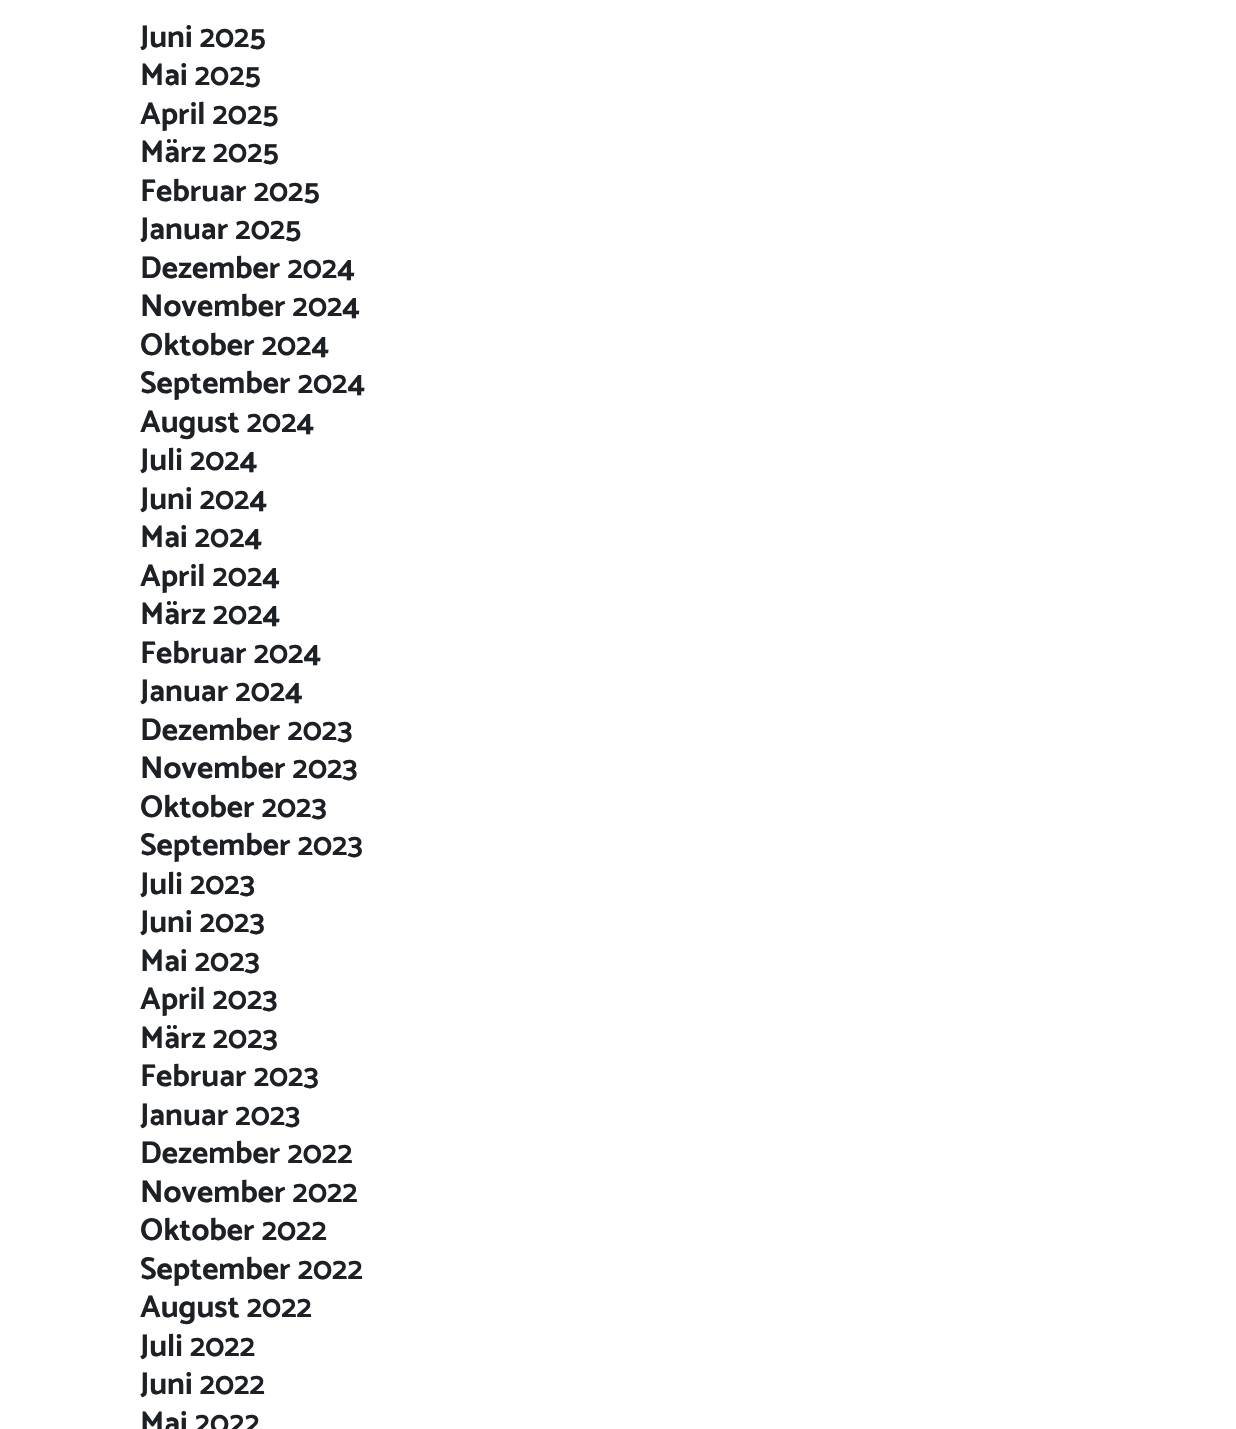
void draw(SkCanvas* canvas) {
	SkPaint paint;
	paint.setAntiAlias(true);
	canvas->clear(0xffffffff);
	SkFont f1(fontMgr->matchFamilyStyle("Catamaran", SkFontStyle::Bold()), 31.5);
	f1.setSubpixel(true);
	paint.setColor(0xff1d2125);
	canvas->drawString("Juni 2025", 140, 47, f1, paint);
	canvas->drawString("Mai 2025", 140, 85, f1, paint);
	canvas->drawString("April 2025", 140, 124, f1, paint);
	canvas->drawString("März 2025", 140, 162, f1, paint);
	canvas->drawString("Februar 2025", 140, 201, f1, paint);
	canvas->drawString("Januar 2025", 140, 239, f1, paint);
	canvas->drawString("Dezember 2024", 140, 278, f1, paint);
	canvas->drawString("November 2024", 140, 316, f1, paint);
	canvas->drawString("Oktober 2024", 140, 355, f1, paint);
	canvas->drawString("September 2024", 140, 393, f1, paint);
	canvas->drawString("August 2024", 140, 432, f1, paint);
	canvas->drawString("Juli 2024", 140, 470, f1, paint);
	canvas->drawString("Juni 2024", 140, 509, f1, paint);
	canvas->drawString("Mai 2024", 140, 547, f1, paint);
	canvas->drawString("April 2024", 140, 586, f1, paint);
	canvas->drawString("März 2024", 140, 624, f1, paint);
	canvas->drawString("Februar 2024", 140, 663, f1, paint);
	canvas->drawString("Januar 2024", 140, 701, f1, paint);
	canvas->drawString("Dezember 2023", 140, 740, f1, paint);
	canvas->drawString("November 2023", 140, 778, f1, paint);
	canvas->drawString("Oktober 2023", 140, 817, f1, paint);
	canvas->drawString("September 2023", 140, 855, f1, paint);
	canvas->drawString("Juli 2023", 140, 894, f1, paint);
	canvas->drawString("Juni 2023", 140, 932, f1, paint);
	canvas->drawString("Mai 2023", 140, 971, f1, paint);
	canvas->drawString("April 2023", 140, 1009, f1, paint);
	canvas->drawString("März 2023", 140, 1048, f1, paint);
	canvas->drawString("Februar 2023", 140, 1086, f1, paint);
	canvas->drawString("Januar 2023", 140, 1125, f1, paint);
	canvas->drawString("Dezember 2022", 140, 1163, f1, paint);
	canvas->drawString("November 2022", 140, 1202, f1, paint);
	canvas->drawString("Oktober 2022", 140, 1240, f1, paint);
	canvas->drawString("September 2022", 140, 1279, f1, paint);
	canvas->drawString("August 2022", 140, 1317, f1, paint);
	canvas->drawString("Juli 2022", 140, 1356, f1, paint);
	canvas->drawString("Juni 2022", 140, 1394, f1, paint);
	canvas->drawString("Mai 2022", 140, 1433, f1, paint);
}
